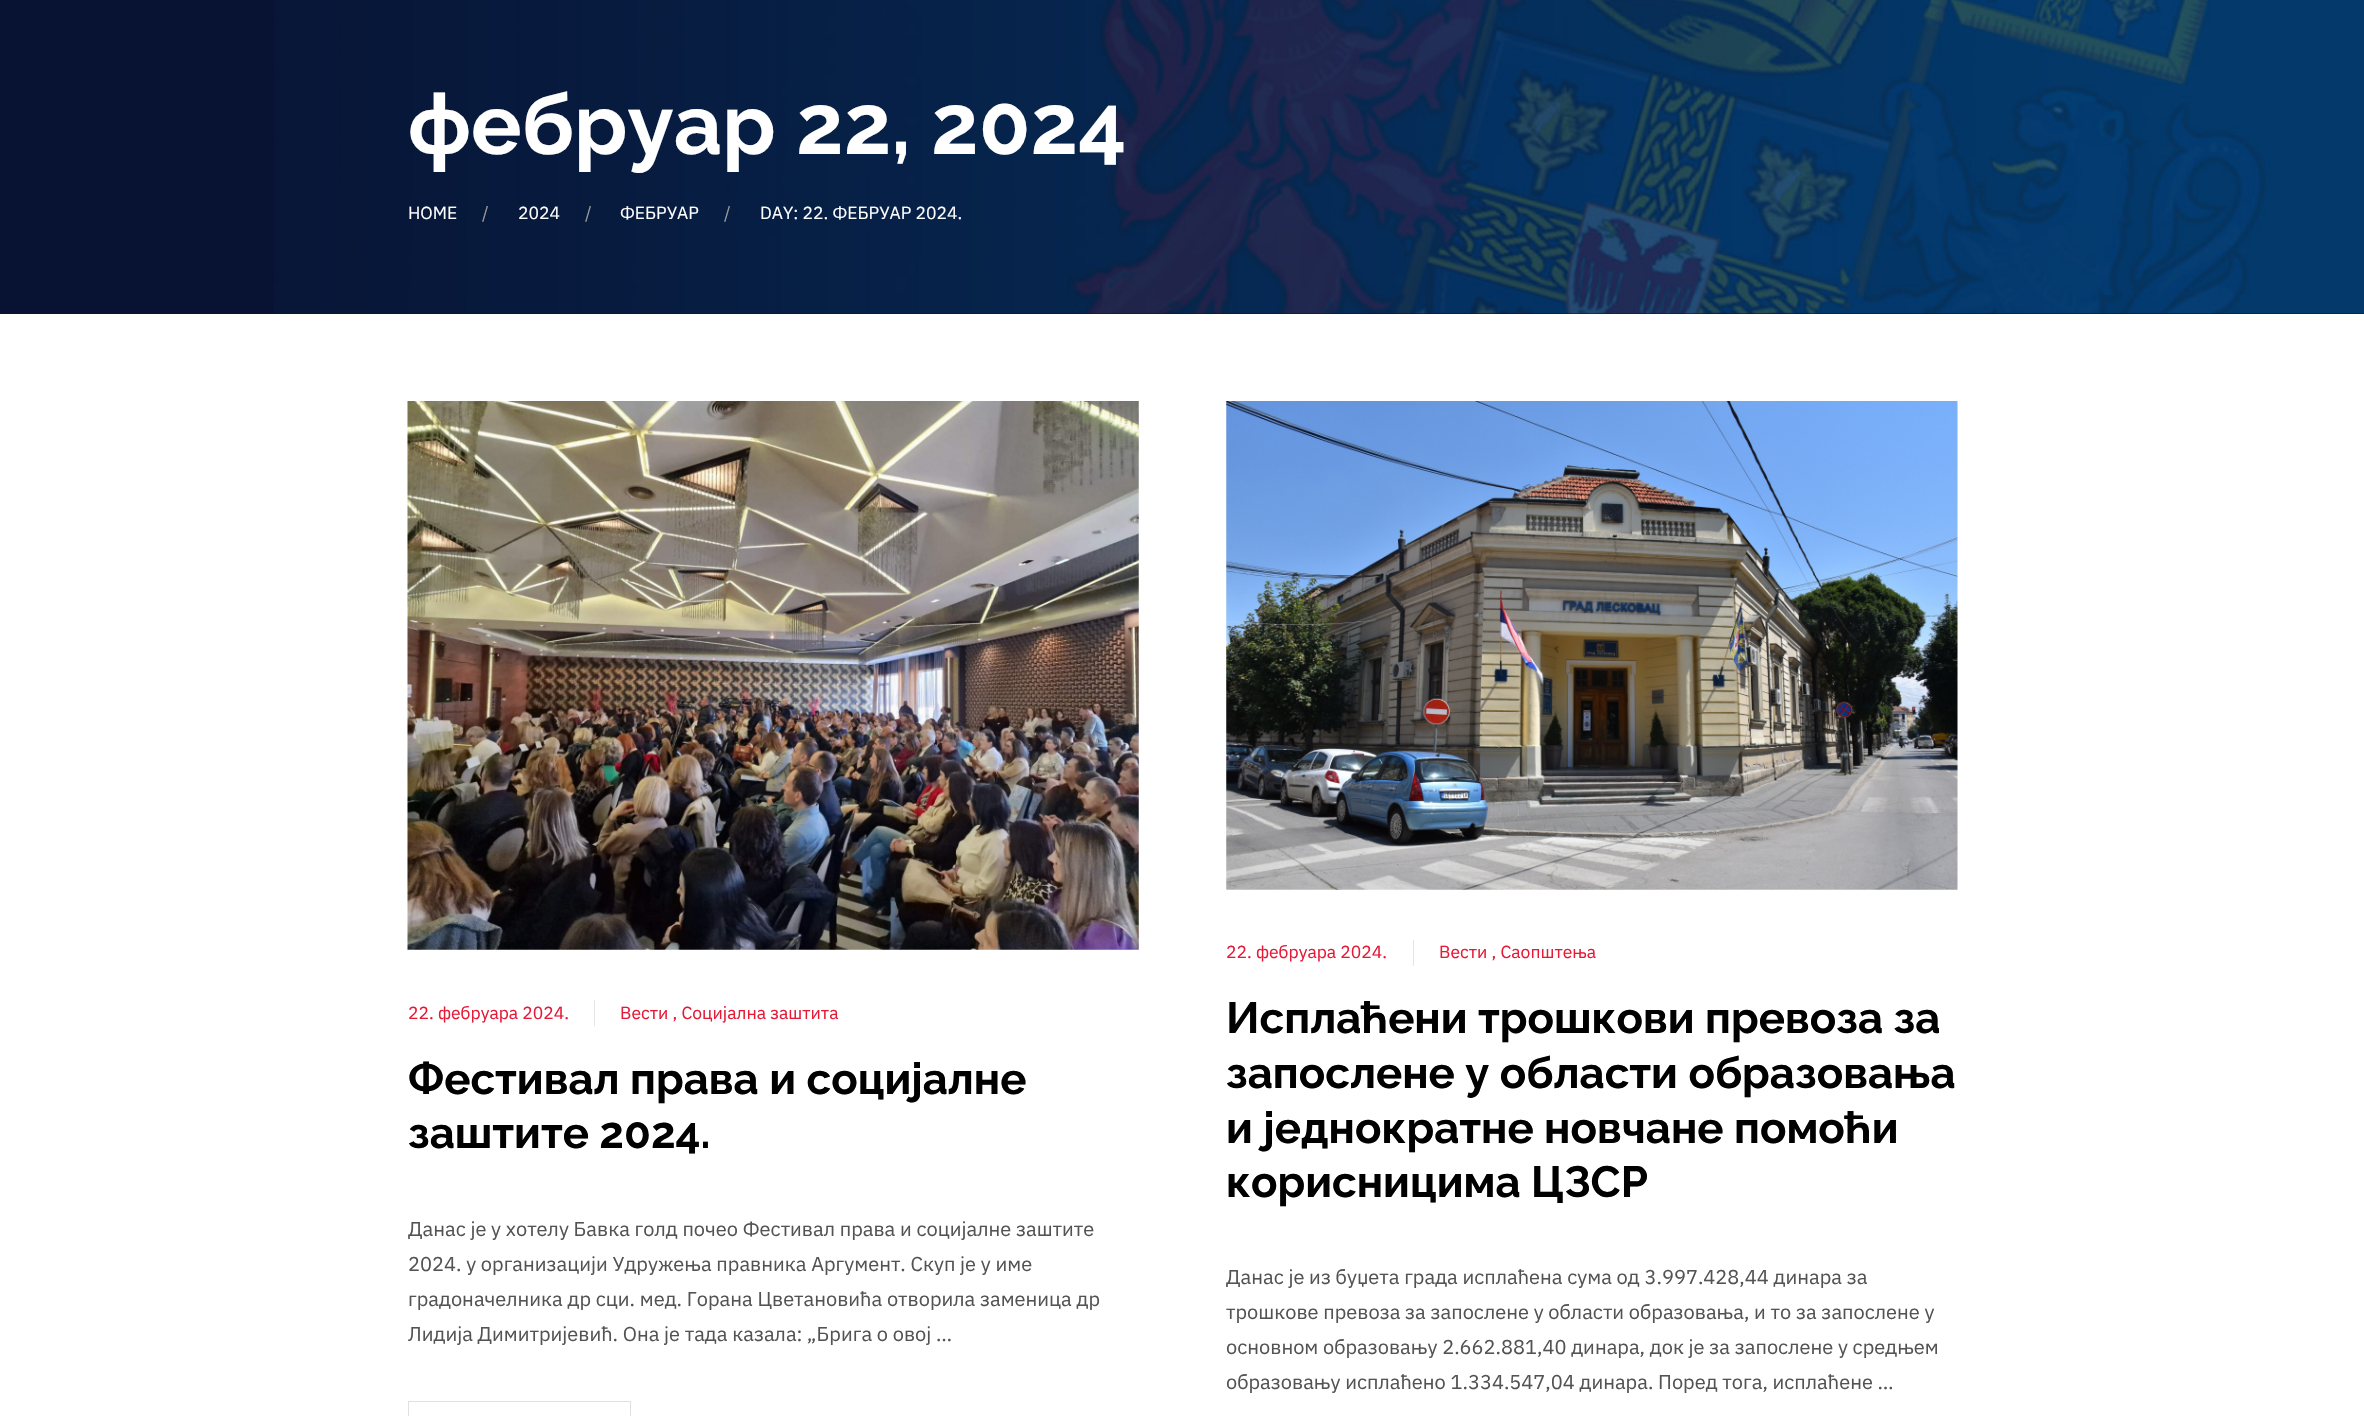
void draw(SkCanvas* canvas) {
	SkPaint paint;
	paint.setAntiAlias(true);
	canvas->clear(0xffffffff);
	paint.setColor(0xff081333);
	canvas->drawRect(SkRect::MakeXYWH(0, 0, 2364, 314), paint);
	canvas->drawImageRect(SkImages::DeferredFromEncodedData(SkData::MakeFromFileName("img1.png")), SkRect::MakeXYWH(274, 0, 2090, 314), SkSamplingOptions());
	SkFont f1(fontMgr->matchFamilyStyle("Raleway", SkFontStyle(100, SkFontStyle::kNormal_Width, SkFontStyle::kUpright_Slant)), 84.4);
	f1.setSubpixel(true);
	paint.setColor(0xffffffff);
	canvas->drawString("фебруар 22, 2024", 408, 154, f1, paint);
	SkFont f2(fontMgr->matchFamilyStyle("IBM Plex Sans", SkFontStyle::Normal()), 17.5);
	f2.setSubpixel(true);
	canvas->drawString("HOME", 408, 219, f2, paint);
	paint.setColor(0xff999999);
	canvas->drawString("/", 482, 219, f2, paint);
	paint.setColor(0xffffffff);
	canvas->drawString("2024", 518, 219, f2, paint);
	paint.setColor(0xff999999);
	canvas->drawString("/", 585, 219, f2, paint);
	paint.setColor(0xffffffff);
	canvas->drawString("ФЕБРУАР", 620, 219, f2, paint);
	paint.setColor(0xff999999);
	canvas->drawString("/", 724, 219, f2, paint);
	paint.setColor(0xffffffff);
	canvas->drawString("DAY: 22. ФЕБРУАР 2024.", 760, 219, f2, paint);
	canvas->drawImageRect(SkImages::DeferredFromEncodedData(SkData::MakeFromFileName("img2.png")), SkRect::MakeXYWH(407, 401, 732, 549), SkSamplingOptions());
	paint.setColor(0xffe61937);
	canvas->drawString("22. фебруара 2024.", 408, 1019, f2, paint);
	paint.setColor(0xffe5e5e5);
	canvas->drawRect(SkRect::MakeXYWH(594, 1000, 1, 26), paint);
	paint.setColor(0xffe61937);
	canvas->drawString("Вести , Социјална заштита", 620, 1019, f2, paint);
	SkFont f3(fontMgr->matchFamilyStyle("Raleway", SkFontStyle(100, SkFontStyle::kNormal_Width, SkFontStyle::kUpright_Slant)), 43.75);
	f3.setSubpixel(true);
	paint.setColor(0xff000000);
	canvas->drawString("Фестивал права и социјалне", 408, 1094, f3, paint);
	canvas->drawString("заштите 2024.", 408, 1148, f3, paint);
	SkFont f4(fontMgr->matchFamilyStyle("IBM Plex Sans", SkFontStyle::Normal()), 20);
	f4.setSubpixel(true);
	paint.setColor(0xff535353);
	canvas->drawString("Данас је у хотелу Бавка голд почео Фестивал права и социјалне заштите", 408, 1236, f4, paint);
	canvas->drawString("2024. у организацији Удружења правника Аргумент. Скуп је у име", 408, 1271, f4, paint);
	canvas->drawString("градоначелника др сци. мед. Горана Цветановића отворила заменица др", 408, 1306, f4, paint);
	canvas->drawString("Лидија Димитријевић. Она је тада казала: „Брига о овој …", 408, 1341, f4, paint);
	paint.setStroke(true);
	paint.setStrokeWidth(1);
	paint.setColor(0xffe0e0e0);
	canvas->drawRect(SkRect::MakeXYWH(408.5, 1401.5, 222, 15), paint);
	canvas->drawImageRect(SkImages::DeferredFromEncodedData(SkData::MakeFromFileName("img3.png")), SkRect::MakeXYWH(1226, 401, 732, 489), SkSamplingOptions());
	paint.setStroke(false);
	paint.setColor(0xffe61937);
	canvas->drawString("22. фебруара 2024.", 1226, 958, f2, paint);
	paint.setColor(0xffe5e5e5);
	canvas->drawRect(SkRect::MakeXYWH(1413, 940, 1, 26), paint);
	paint.setColor(0xffe61937);
	canvas->drawString("Вести , Саопштења", 1439, 958, f2, paint);
	paint.setColor(0xff000000);
	canvas->drawString("Исплаћени трошкови превоза за", 1226, 1033, f3, paint);
	canvas->drawString("запослене у области образовања", 1226, 1088, f3, paint);
	canvas->drawString("и једнократне новчане помоћи", 1226, 1143, f3, paint);
	canvas->drawString("корисницима ЦЗСР", 1226, 1197, f3, paint);
	paint.setColor(0xff535353);
	canvas->drawString("Данас је из буџета града исплаћена сума од 3.997.428,44 динара за", 1226, 1284, f4, paint);
	canvas->drawString("трошкове превоза за запослене у области образовања, и то за запослене у", 1226, 1319, f4, paint);
	canvas->drawString("основном образовању 2.662.881,40 динара, док је за запослене у средњем", 1226, 1354, f4, paint);
	canvas->drawString("образовању исплаћено 1.334.547,04 динара. Поред тога, исплаћене …", 1226, 1389, f4, paint);
}
